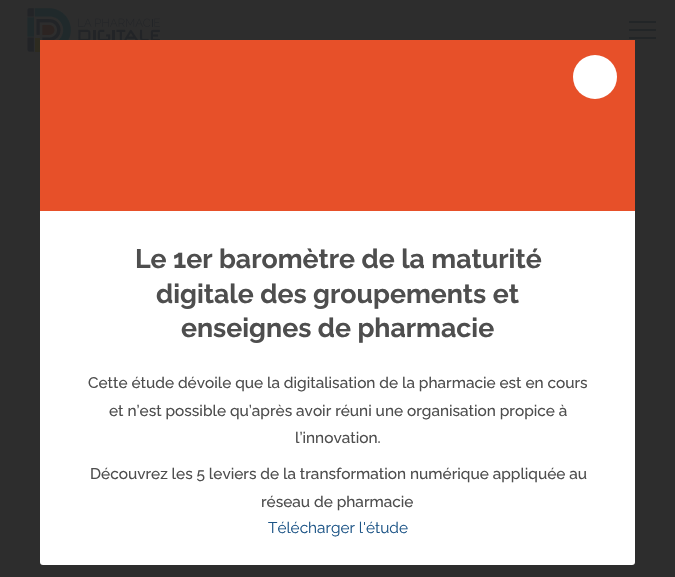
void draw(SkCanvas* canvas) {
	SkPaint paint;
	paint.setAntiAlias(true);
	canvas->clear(0xff2d2d2d);
	canvas->drawImageRect(SkImages::DeferredFromEncodedData(SkData::MakeFromFileName("img1.png")), SkRect::MakeXYWH(27, 8, 133, 44), SkSamplingOptions());
	paint.setColor(0xff222527);
	canvas->drawRect(SkRect::MakeXYWH(629, 21, 27, 2), paint);
	canvas->drawRect(SkRect::MakeXYWH(629, 29, 27, 2), paint);
	canvas->drawRect(SkRect::MakeXYWH(629, 37, 27, 2), paint);
	paint.setColor(0xffffffff);
	canvas->drawRoundRect(SkRect::MakeXYWH(40, 40, 595, 525), 3, 3, paint);
	paint.setColor(0xffe75029);
	canvas->drawRect(SkRect::MakeXYWH(40, 40, 595, 171), paint);
	paint.setColor(0xffffffff);
	canvas->drawCircle(595, 77, 22, paint);
	SkFont f1(fontMgr->matchFamilyStyle("Raleway", SkFontStyle::Bold()), 26.7);
	f1.setSubpixel(true);
	paint.setColor(0xff4e4e4e);
	canvas->drawString("Le 1er baromètre de la maturité", 135, 268, f1, paint);
	canvas->drawString("digitale des groupements et", 156, 303, f1, paint);
	canvas->drawString("enseignes de pharmacie", 181, 337, f1, paint);
	SkFont f2(fontMgr->matchFamilyStyle("Raleway", SkFontStyle(500, SkFontStyle::kNormal_Width, SkFontStyle::kUpright_Slant)), 15.4);
	f2.setSubpixel(true);
	canvas->drawString("Cette étude dévoile que la digitalisation de la pharmacie est en cours", 88, 388, f2, paint);
	canvas->drawString("et n’est possible qu’après avoir réuni une organisation propice à", 109, 416, f2, paint);
	canvas->drawString("l’innovation.", 295, 443, f2, paint);
	canvas->drawString("Découvrez les 5 leviers de la transformation numérique appliquée au", 90, 479, f2, paint);
	canvas->drawString("réseau de pharmacie", 261, 507, f2, paint);
	SkFont f3(fontMgr->matchFamilyStyle("Raleway", SkFontStyle::Normal()), 15.4);
	f3.setSubpixel(true);
	paint.setColor(0xff1c5486);
	canvas->drawString("Télécharger l'étude", 268, 533, f3, paint);
}
